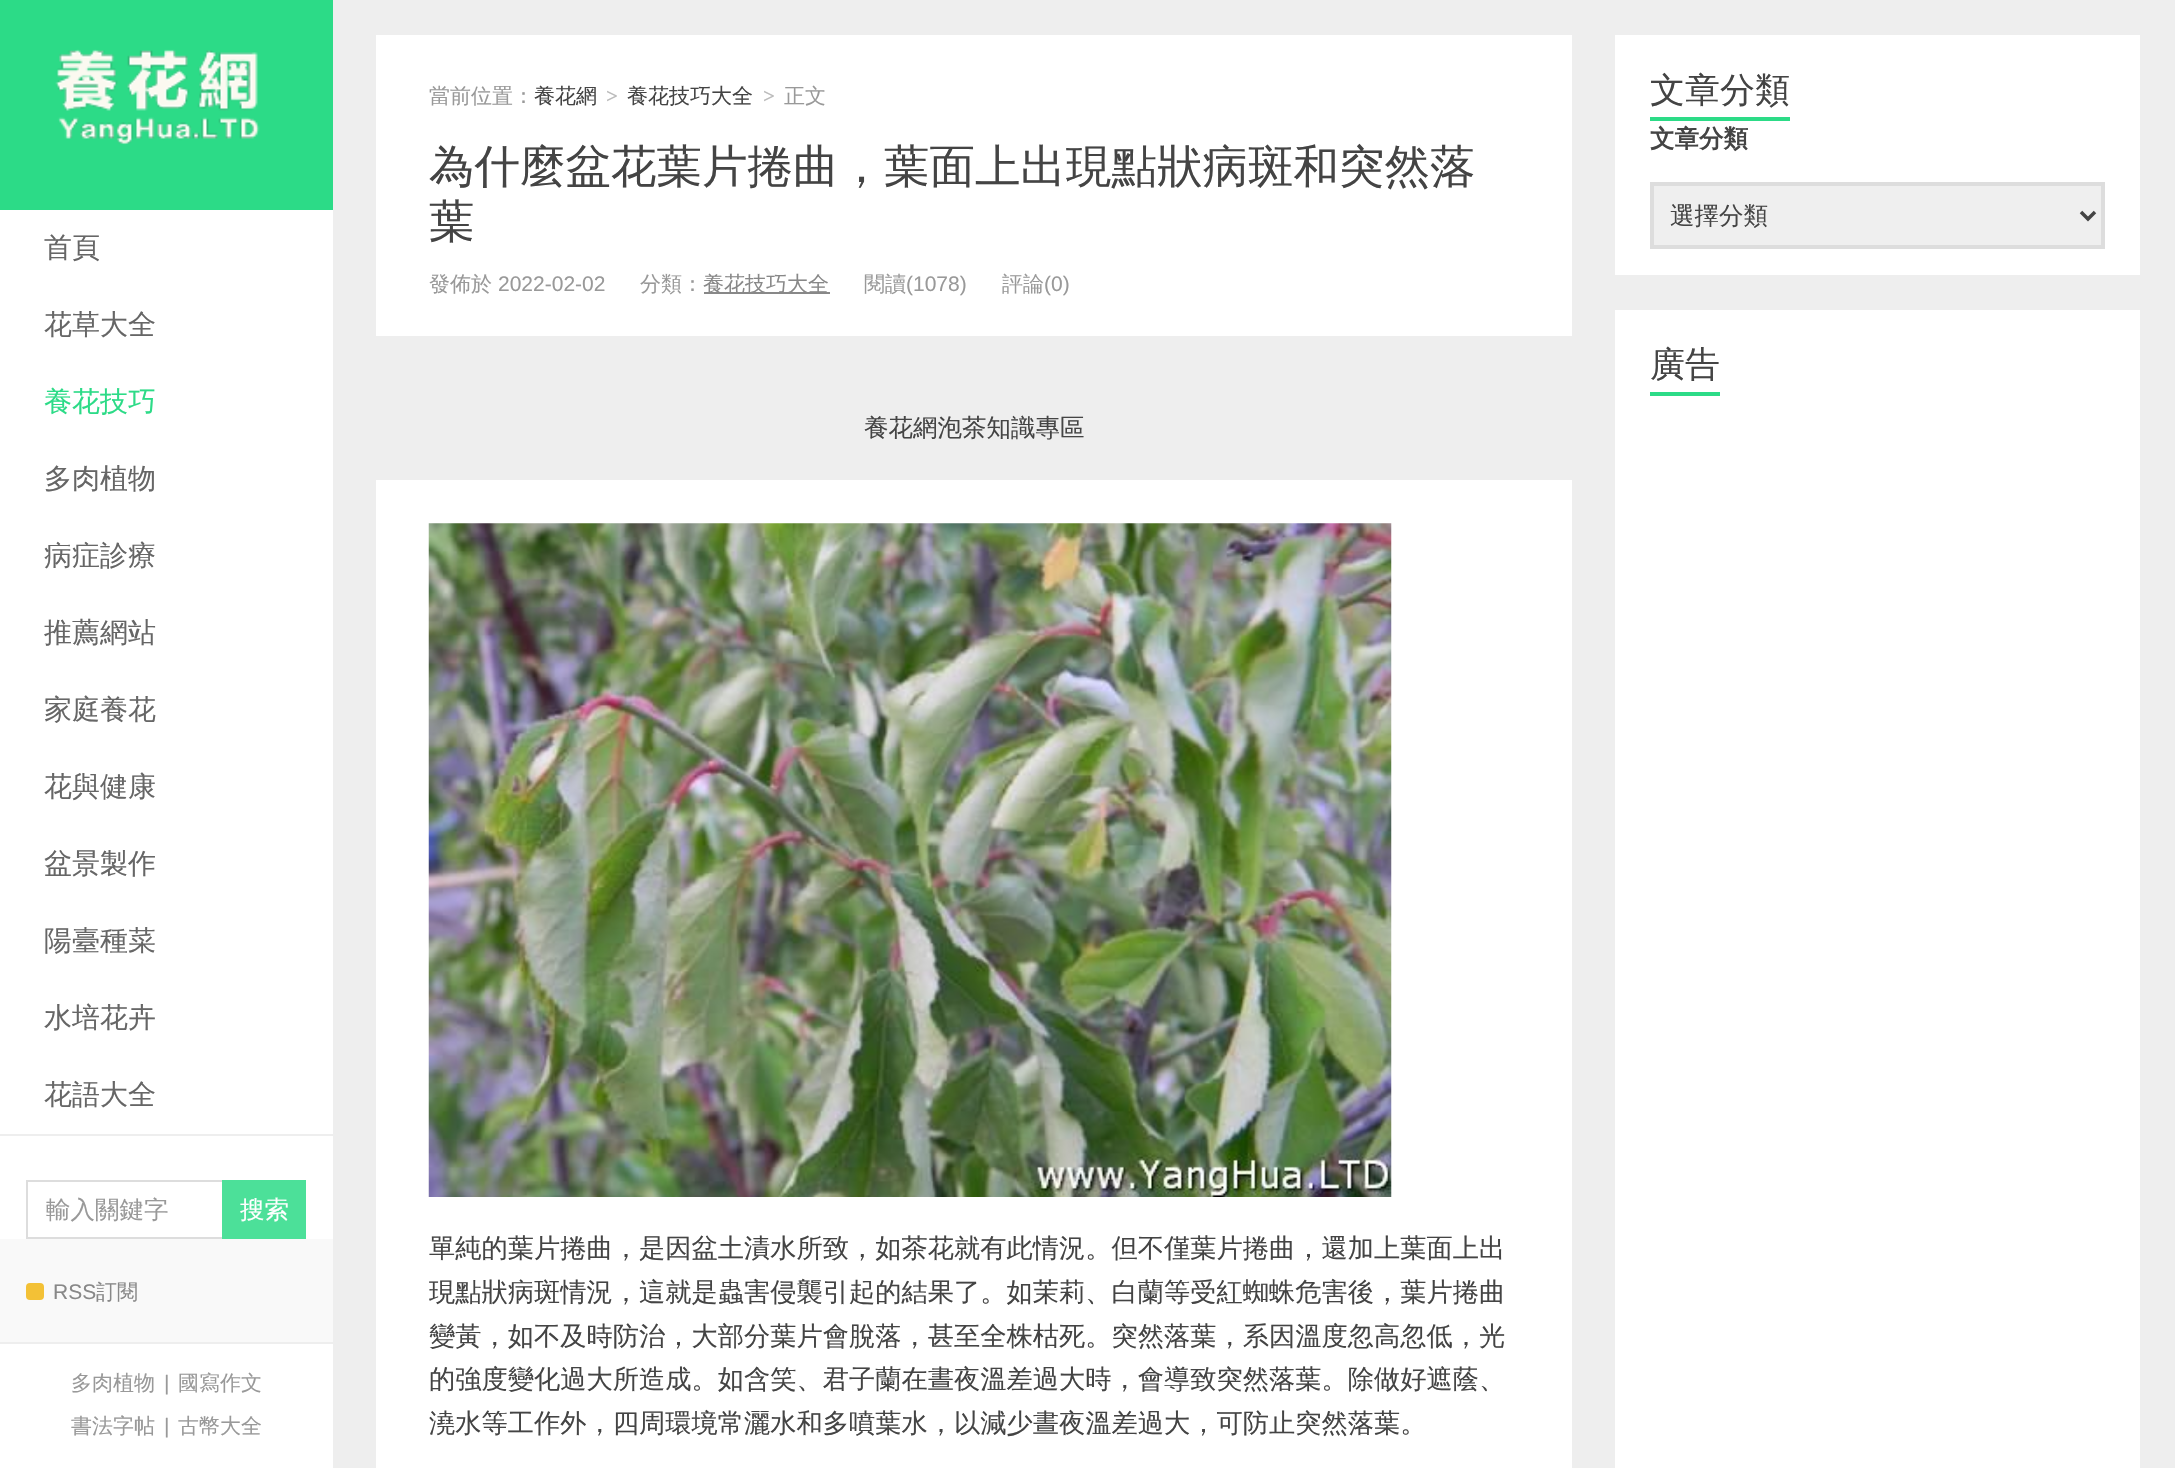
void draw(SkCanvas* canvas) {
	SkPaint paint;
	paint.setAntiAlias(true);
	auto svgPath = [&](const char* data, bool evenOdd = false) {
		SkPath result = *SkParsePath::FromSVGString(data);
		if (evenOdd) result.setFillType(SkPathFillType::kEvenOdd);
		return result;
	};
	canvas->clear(0xffeeeeee);
	paint.setColor(0xffffffff);
	canvas->drawRect(SkRect::MakeXYWH(0, 210, 333, 1258), paint);
	paint.setColor(0xff2cdb87);
	canvas->drawRect(SkRect::MakeXYWH(0, 0, 333, 210), paint);
	canvas->drawImageRect(SkImages::DeferredFromEncodedData(SkData::MakeFromFileName("img1.png")), SkRect::MakeXYWH(55, 49, 205, 96), SkSamplingOptions());
	paint.setColor(0xffeeeeee);
	canvas->drawRect(SkRect::MakeXYWH(0, 1134, 333, 2), paint);
	SkFont f1(fontMgr->matchFamilyStyle("WenQuanYi Zen Hei", SkFontStyle(500, SkFontStyle::kNormal_Width, SkFontStyle::kUpright_Slant)), 28);
	f1.setSubpixel(true);
	paint.setColor(0xff666666);
	canvas->drawString("首頁", 44, 257, f1, paint);
	canvas->drawString("花草大全", 44, 334, f1, paint);
	paint.setColor(0xff2cdb87);
	canvas->drawString("養花技巧", 44, 411, f1, paint);
	paint.setColor(0xff666666);
	canvas->drawString("多肉植物", 44, 488, f1, paint);
	canvas->drawString("病症診療", 44, 565, f1, paint);
	canvas->drawString("推薦網站", 44, 642, f1, paint);
	canvas->drawString("家庭養花", 44, 719, f1, paint);
	canvas->drawString("花與健康", 44, 796, f1, paint);
	canvas->drawString("盆景製作", 44, 873, f1, paint);
	canvas->drawString("陽臺種菜", 44, 950, f1, paint);
	canvas->drawString("水培花卉", 44, 1027, f1, paint);
	canvas->drawString("花語大全", 44, 1104, f1, paint);
	paint.setColor(0xffdddddd);
	canvas->drawRect(SkRect::MakeXYWH(26, 1180, 196, 2), paint);
	canvas->drawRect(SkRect::MakeXYWH(26, 1237, 196, 2), paint);
	canvas->drawRect(SkRect::MakeXYWH(26, 1180, 2, 59), paint);
	SkFont f2(fontMgr->matchFamilyStyle("WenQuanYi Zen Hei", SkFontStyle(500, SkFontStyle::kNormal_Width, SkFontStyle::kUpright_Slant)), 24.5);
	f2.setSubpixel(true);
	paint.setColor(0xff999999);
	canvas->drawString("輸入關鍵字", 46, 1218, f2, paint);
	paint.setColor(0xff4ce099);
	canvas->drawRect(SkRect::MakeXYWH(222, 1180, 84, 59), paint);
	paint.setColor(0xffffffff);
	canvas->drawString("搜索", 240, 1218, f2, paint);
	paint.setColor(0xfff9f9f9);
	canvas->drawRect(SkRect::MakeXYWH(0, 1239, 333, 103), paint);
	paint.setColor(0xffeeeeee);
	canvas->drawRect(SkRect::MakeXYWH(0, 1342, 333, 2), paint);
	paint.setColor(0xfff3c136);
	canvas->drawRoundRect(SkRect::MakeXYWH(26, 1283, 18, 17), 4, 4, paint);
	SkFont f3(fontMgr->matchFamilyStyle("Liberation Sans", SkFontStyle::Normal()), 21);
	f3.setSubpixel(true);
	paint.setColor(0xff888888);
	canvas->drawString("RSS", 53, 1299, f3, paint);
	SkFont f4(fontMgr->matchFamilyStyle("WenQuanYi Zen Hei", SkFontStyle(500, SkFontStyle::kNormal_Width, SkFontStyle::kUpright_Slant)), 21);
	f4.setSubpixel(true);
	canvas->drawString("訂閱", 96, 1299, f4, paint);
	paint.setColor(0xff999999);
	canvas->drawString("多肉植物", 71, 1390, f4, paint);
	canvas->drawString("|", 164, 1390, f3, paint);
	canvas->drawString("國寫作文", 178, 1390, f4, paint);
	canvas->drawString("書法字帖", 71, 1433, f4, paint);
	canvas->drawString("|", 164, 1433, f3, paint);
	canvas->drawString("古幣大全", 178, 1433, f4, paint);
	paint.setColor(0xffffffff);
	canvas->drawRect(SkRect::MakeXYWH(376, 35, 1196, 301), paint);
	paint.setColor(0xff999999);
	canvas->drawString("當前位置：", 429, 103, f4, paint);
	paint.setColor(0xff444444);
	canvas->drawString("養花網", 534, 103, f4, paint);
	SkFont f5(fontMgr->matchFamilyStyle("Liberation Serif", SkFontStyle::Bold()), 21);
	f5.setSubpixel(true);
	paint.setColor(0xffbbbbbb);
	canvas->drawString(">", 606, 103, f5, paint);
	paint.setColor(0xff444444);
	canvas->drawString("養花技巧大全", 627, 103, f4, paint);
	paint.setColor(0xffbbbbbb);
	canvas->drawString(">", 763, 103, f5, paint);
	paint.setColor(0xff999999);
	canvas->drawString("正文", 784, 103, f4, paint);
	SkFont f6(fontMgr->matchFamilyStyle("WenQuanYi Zen Hei", SkFontStyle(500, SkFontStyle::kNormal_Width, SkFontStyle::kUpright_Slant)), 45.5);
	f6.setSubpixel(true);
	paint.setColor(0xff444444);
	canvas->drawString("為什麼盆花葉片捲曲，葉面上出現點狀病斑和突然落", 429, 182, f6, paint);
	canvas->drawString("葉", 429, 237, f6, paint);
	paint.setColor(0xff999999);
	canvas->drawString("發佈於", 429, 291, f4, paint);
	canvas->drawString("2022-02-02", 498, 291, f3, paint);
	canvas->drawString("分類：", 640, 291, f4, paint);
	paint.setColor(0xff888888);
	canvas->drawRect(SkRect::MakeXYWH(704, 292, 126, 2), paint);
	canvas->drawString("養花技巧大全", 703, 291, f4, paint);
	paint.setColor(0xff999999);
	canvas->drawString("閱讀", 864, 291, f4, paint);
	canvas->drawString("(1078)", 906, 291, f3, paint);
	canvas->drawString("評論", 1002, 291, f4, paint);
	canvas->drawString("(0)", 1044, 291, f3, paint);
	paint.setColor(0xff444444);
	canvas->drawString("養花網泡茶知識專區", 864, 436, f2, paint);
	paint.setColor(0xffffffff);
	canvas->drawRect(SkRect::MakeXYWH(376, 480, 1196, 988), paint);
	canvas->drawImageRect(SkImages::DeferredFromEncodedData(SkData::MakeFromFileName("img2.png")), SkRect::MakeXYWH(428, 523, 964, 674), SkSamplingOptions());
	SkFont f7(fontMgr->matchFamilyStyle("WenQuanYi Zen Hei", SkFontStyle(500, SkFontStyle::kNormal_Width, SkFontStyle::kUpright_Slant)), 26.25);
	f7.setSubpixel(true);
	paint.setColor(0xff444444);
	canvas->drawString("單純的葉片捲曲，是因盆土漬水所致，如茶花就有此情況。但不僅葉片捲曲，還加上葉面上出", 429, 1257, f7, paint);
	canvas->drawString("現點狀病斑情況，這就是蟲害侵襲引起的結果了。如茉莉、白蘭等受紅蜘蛛危害後，葉片捲曲", 429, 1301, f7, paint);
	canvas->drawString("變黃，如不及時防治，大部分葉片會脫落，甚至全株枯死。突然落葉，系因溫度忽高忽低，光", 429, 1345, f7, paint);
	canvas->drawString("的強度變化過大所造成。如含笑、君子蘭在晝夜溫差過大時，會導致突然落葉。除做好遮蔭、", 429, 1388, f7, paint);
	canvas->drawString("澆水等工作外，四周環境常灑水和多噴葉水，以減少晝夜溫差過大，可防止突然落葉。", 429, 1432, f7, paint);
	paint.setColor(0xffffffff);
	canvas->drawRect(SkRect::MakeXYWH(1615, 35, 525, 240), paint);
	paint.setColor(0xff2cdb87);
	canvas->drawRect(SkRect::MakeXYWH(1650, 117, 140, 4), paint);
	SkFont f8(fontMgr->matchFamilyStyle("WenQuanYi Zen Hei", SkFontStyle(500, SkFontStyle::kNormal_Width, SkFontStyle::kUpright_Slant)), 35);
	f8.setSubpixel(true);
	paint.setColor(0xff444444);
	canvas->drawString("文章分類", 1650, 102, f8, paint);
	SkFont f9(fontMgr->matchFamilyStyle("WenQuanYi Zen Hei", SkFontStyle::Bold()), 24.5);
	f9.setSubpixel(true);
	canvas->drawString("文章分類", 1650, 147, f9, paint);
	paint.setColor(0xffefefef);
	canvas->drawRect(SkRect::MakeXYWH(1652, 184, 451, 63), paint);
	paint.setStroke(true);
	paint.setStrokeWidth(4);
	paint.setColor(0xffdddddd);
	canvas->drawRect(SkRect::MakeXYWH(1652, 184, 451, 63), paint);
	paint.setStrokeWidth(3.5);
	paint.setColor(0xff444444);
	canvas->drawPath(svgPath("M2081 212L2088 219L2095 212"), paint);
	paint.setStroke(false);
	canvas->drawString("選擇分類", 1670, 224, f2, paint);
	paint.setColor(0xffffffff);
	canvas->drawRect(SkRect::MakeXYWH(1615, 310, 525, 1158), paint);
	paint.setColor(0xff2cdb87);
	canvas->drawRect(SkRect::MakeXYWH(1650, 392, 70, 4), paint);
	paint.setColor(0xff444444);
	canvas->drawString("廣告", 1650, 376, f8, paint);
}
